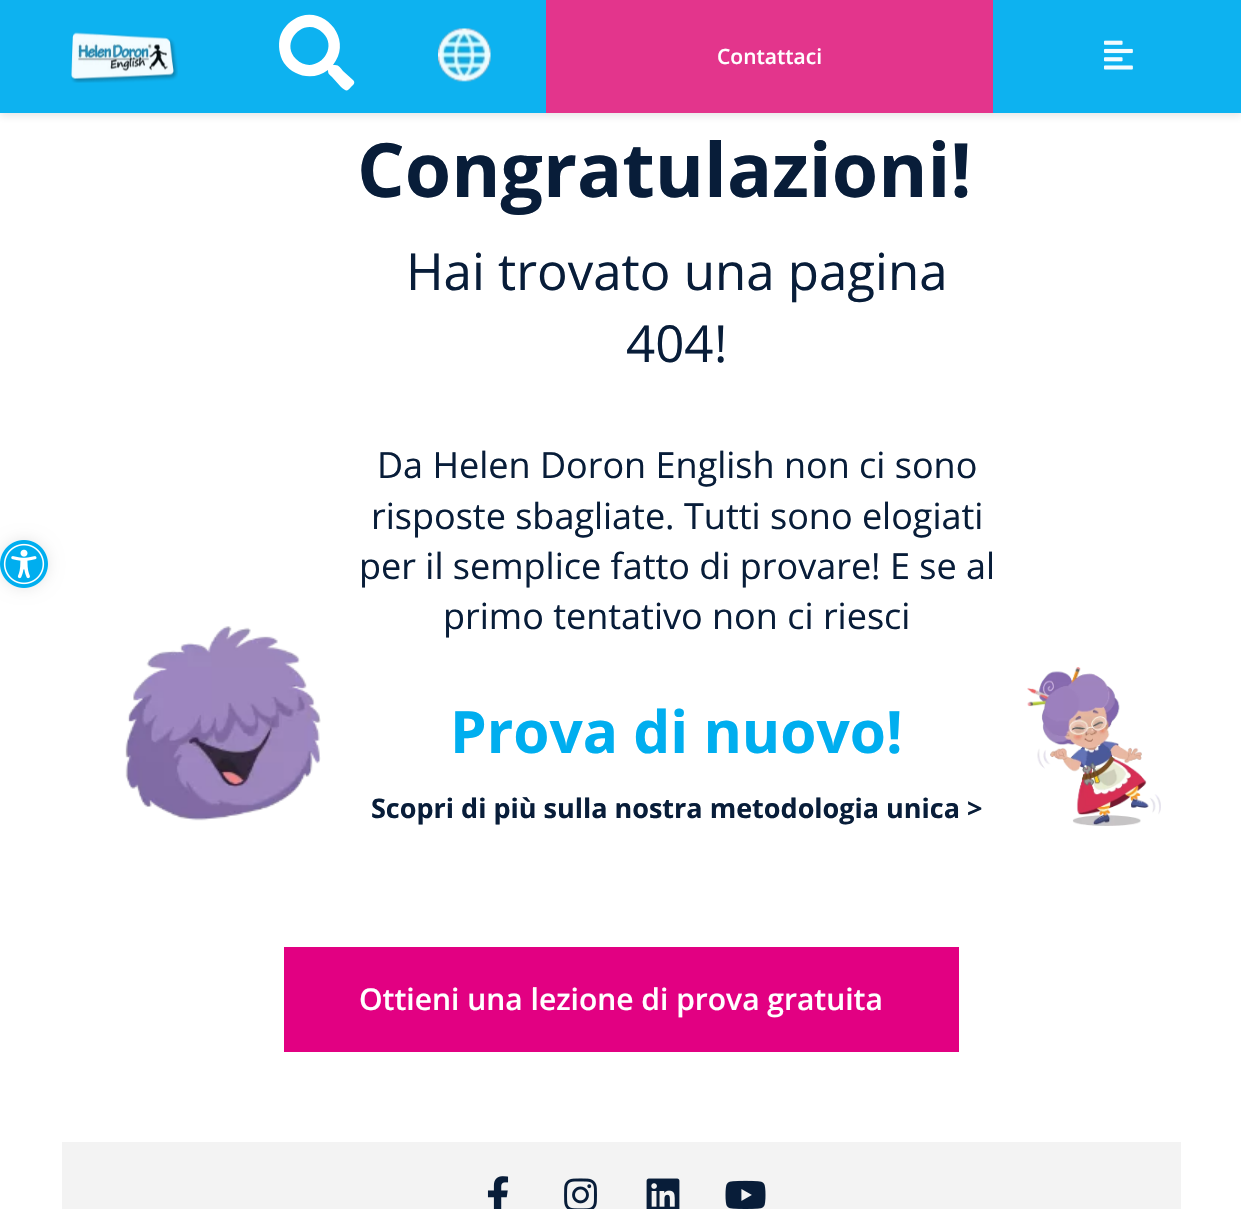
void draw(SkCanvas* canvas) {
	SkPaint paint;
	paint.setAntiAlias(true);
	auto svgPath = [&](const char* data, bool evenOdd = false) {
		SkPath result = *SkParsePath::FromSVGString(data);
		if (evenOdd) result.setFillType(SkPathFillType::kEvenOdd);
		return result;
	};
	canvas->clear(0xffffffff);
	paint.setColor(0x1a000000);
	paint.setMaskFilter(SkMaskFilter::MakeBlur(kNormal_SkBlurStyle, 7.5));
	canvas->drawRoundRect(SkRect::MakeXYWH(0, 540, 48, 48), 24, 24, paint);
	paint.setMaskFilter(nullptr);
	paint.setColor(0xffffffff);
	canvas->drawCircle(24, 564, 24, paint);
	canvas->drawImageRect(SkImages::DeferredFromEncodedData(SkData::MakeFromFileName("img1.png")), SkRect::MakeXYWH(0, 540, 48, 48), SkSamplingOptions());
	paint.setColor(0x1a0d0d0d);
	paint.setMaskFilter(SkMaskFilter::MakeBlur(kNormal_SkBlurStyle, 4));
	canvas->drawRect(SkRect::MakeXYWH(0, 3, 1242, 113), paint);
	paint.setMaskFilter(nullptr);
	paint.setColor(0xff0db2f0);
	canvas->drawRect(SkRect::MakeXYWH(0, 0, 1241, 113), paint);
	canvas->drawImageRect(SkImages::DeferredFromEncodedData(SkData::MakeFromFileName("img2.png")), SkRect::MakeXYWH(71, 32, 107, 51), SkSamplingOptions());
	paint.setColor(0xffffffff);
	canvas->drawPath(svgPath("M353 80C356 83 353 85 351 87C347 92 346 91 341 87L332 77C329 74 328 74 328 70C314 81 294 77 284 63C279 55 278 45 280 37C282 30 287 24 293 20C321 1 355 38 333 65C339 65 339 66 343 71ZM296 59C314 77 340 50 323 33C305 15 279 42 296 59Z"), paint);
	canvas->drawImageRect(SkImages::DeferredFromEncodedData(SkData::MakeFromFileName("img3.png")), SkRect::MakeXYWH(438, 28, 53, 54), SkSamplingOptions());
	paint.setColor(0xffe3358c);
	canvas->drawRect(SkRect::MakeXYWH(546, 0, 447, 113), paint);
	SkFont f1(fontMgr->matchFamilyStyle("Open Sans", SkFontStyle(600, SkFontStyle::kNormal_Width, SkFontStyle::kUpright_Slant)), 21);
	f1.setSubpixel(true);
	paint.setColor(0xffffffff);
	canvas->drawString("Contattaci", 717, 64, f1, paint);
	canvas->drawImageRect(SkImages::DeferredFromEncodedData(SkData::MakeFromFileName("img4.png")), SkRect::MakeXYWH(1104, 40, 29, 30), SkSamplingOptions());
	canvas->drawImageRect(SkImages::DeferredFromEncodedData(SkData::MakeFromFileName("img5.png")), SkRect::MakeXYWH(125, 626, 196, 195), SkSamplingOptions());
	SkFont f2(fontMgr->matchFamilyStyle("Open Sans", SkFontStyle::Bold()), 75);
	f2.setSubpixel(true);
	paint.setColor(0xff081d39);
	canvas->drawString("Congratulazioni!", 357, 197, f2, paint);
	SkFont f3(fontMgr->matchFamilyStyle("Open Sans", SkFontStyle::Normal()), 51);
	f3.setSubpixel(true);
	canvas->drawString("Hai trovato una pagina", 406, 290, f3, paint);
	canvas->drawString("404", 626, 362, f3, paint);
	SkFont f4(fontMgr->matchFamilyStyle("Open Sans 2", SkFontStyle::Normal()), 51);
	f4.setSubpixel(true);
	canvas->drawString("!", 714, 362, f4, paint);
	SkFont f5(fontMgr->matchFamilyStyle("Open Sans", SkFontStyle::Normal()), 36);
	f5.setSubpixel(true);
	canvas->drawString("Da Helen Doron English non ci sono", 377, 478, f5, paint);
	canvas->drawString("risposte sbagliate", 371, 529, f5, paint);
	SkFont f6(fontMgr->matchFamilyStyle("Open Sans 2", SkFontStyle::Normal()), 36);
	f6.setSubpixel(true);
	canvas->drawString(".", 665, 529, f6, paint);
	canvas->drawString("Tutti sono elogiati", 684, 529, f5, paint);
	canvas->drawString("per il semplice fatto di provare", 359, 579, f5, paint);
	canvas->drawString("!", 871, 579, f6, paint);
	canvas->drawString("E se al", 890, 579, f5, paint);
	canvas->drawString("primo tentativo non ci riesci", 443, 629, f5, paint);
	SkFont f7(fontMgr->matchFamilyStyle("Open Sans", SkFontStyle::Bold()), 58.5);
	f7.setSubpixel(true);
	paint.setColor(0xff00aeef);
	canvas->drawString("Prova di nuovo!", 450, 753, f7, paint);
	SkFont f8(fontMgr->matchFamilyStyle("Open Sans", SkFontStyle::Bold()), 27);
	f8.setSubpixel(true);
	paint.setColor(0xff081d39);
	canvas->drawString("Scopri di più sulla nostra metodologia unica >", 371, 818, f8, paint);
	canvas->drawImageRect(SkImages::DeferredFromEncodedData(SkData::MakeFromFileName("img6.png")), SkRect::MakeXYWH(1027, 667, 134, 159), SkSamplingOptions());
	paint.setColor(0xffe20082);
	canvas->drawRect(SkRect::MakeXYWH(284, 947, 675, 105), paint);
	SkFont f9(fontMgr->matchFamilyStyle("Open Sans", SkFontStyle(600, SkFontStyle::kNormal_Width, SkFontStyle::kUpright_Slant)), 30);
	f9.setSubpixel(true);
	paint.setColor(0xffffffff);
	canvas->drawString("Ottieni una lezione di prova gratuita", 359, 1010, f9, paint);
	paint.setColor(0xfff3f3f3);
	canvas->drawRect(SkRect::MakeXYWH(62, 1142, 1119, 67), paint);
	canvas->drawImageRect(SkImages::DeferredFromEncodedData(SkData::MakeFromFileName("img7.png")), SkRect::MakeXYWH(487, 1176, 22, 33), SkSamplingOptions());
	canvas->drawImageRect(SkImages::DeferredFromEncodedData(SkData::MakeFromFileName("img8.png")), SkRect::MakeXYWH(564, 1178, 33, 31), SkSamplingOptions());
	canvas->drawImageRect(SkImages::DeferredFromEncodedData(SkData::MakeFromFileName("img9.png")), SkRect::MakeXYWH(646, 1178, 34, 31), SkSamplingOptions());
	canvas->drawImageRect(SkImages::DeferredFromEncodedData(SkData::MakeFromFileName("img10.png")), SkRect::MakeXYWH(725, 1180, 41, 29), SkSamplingOptions());
}
